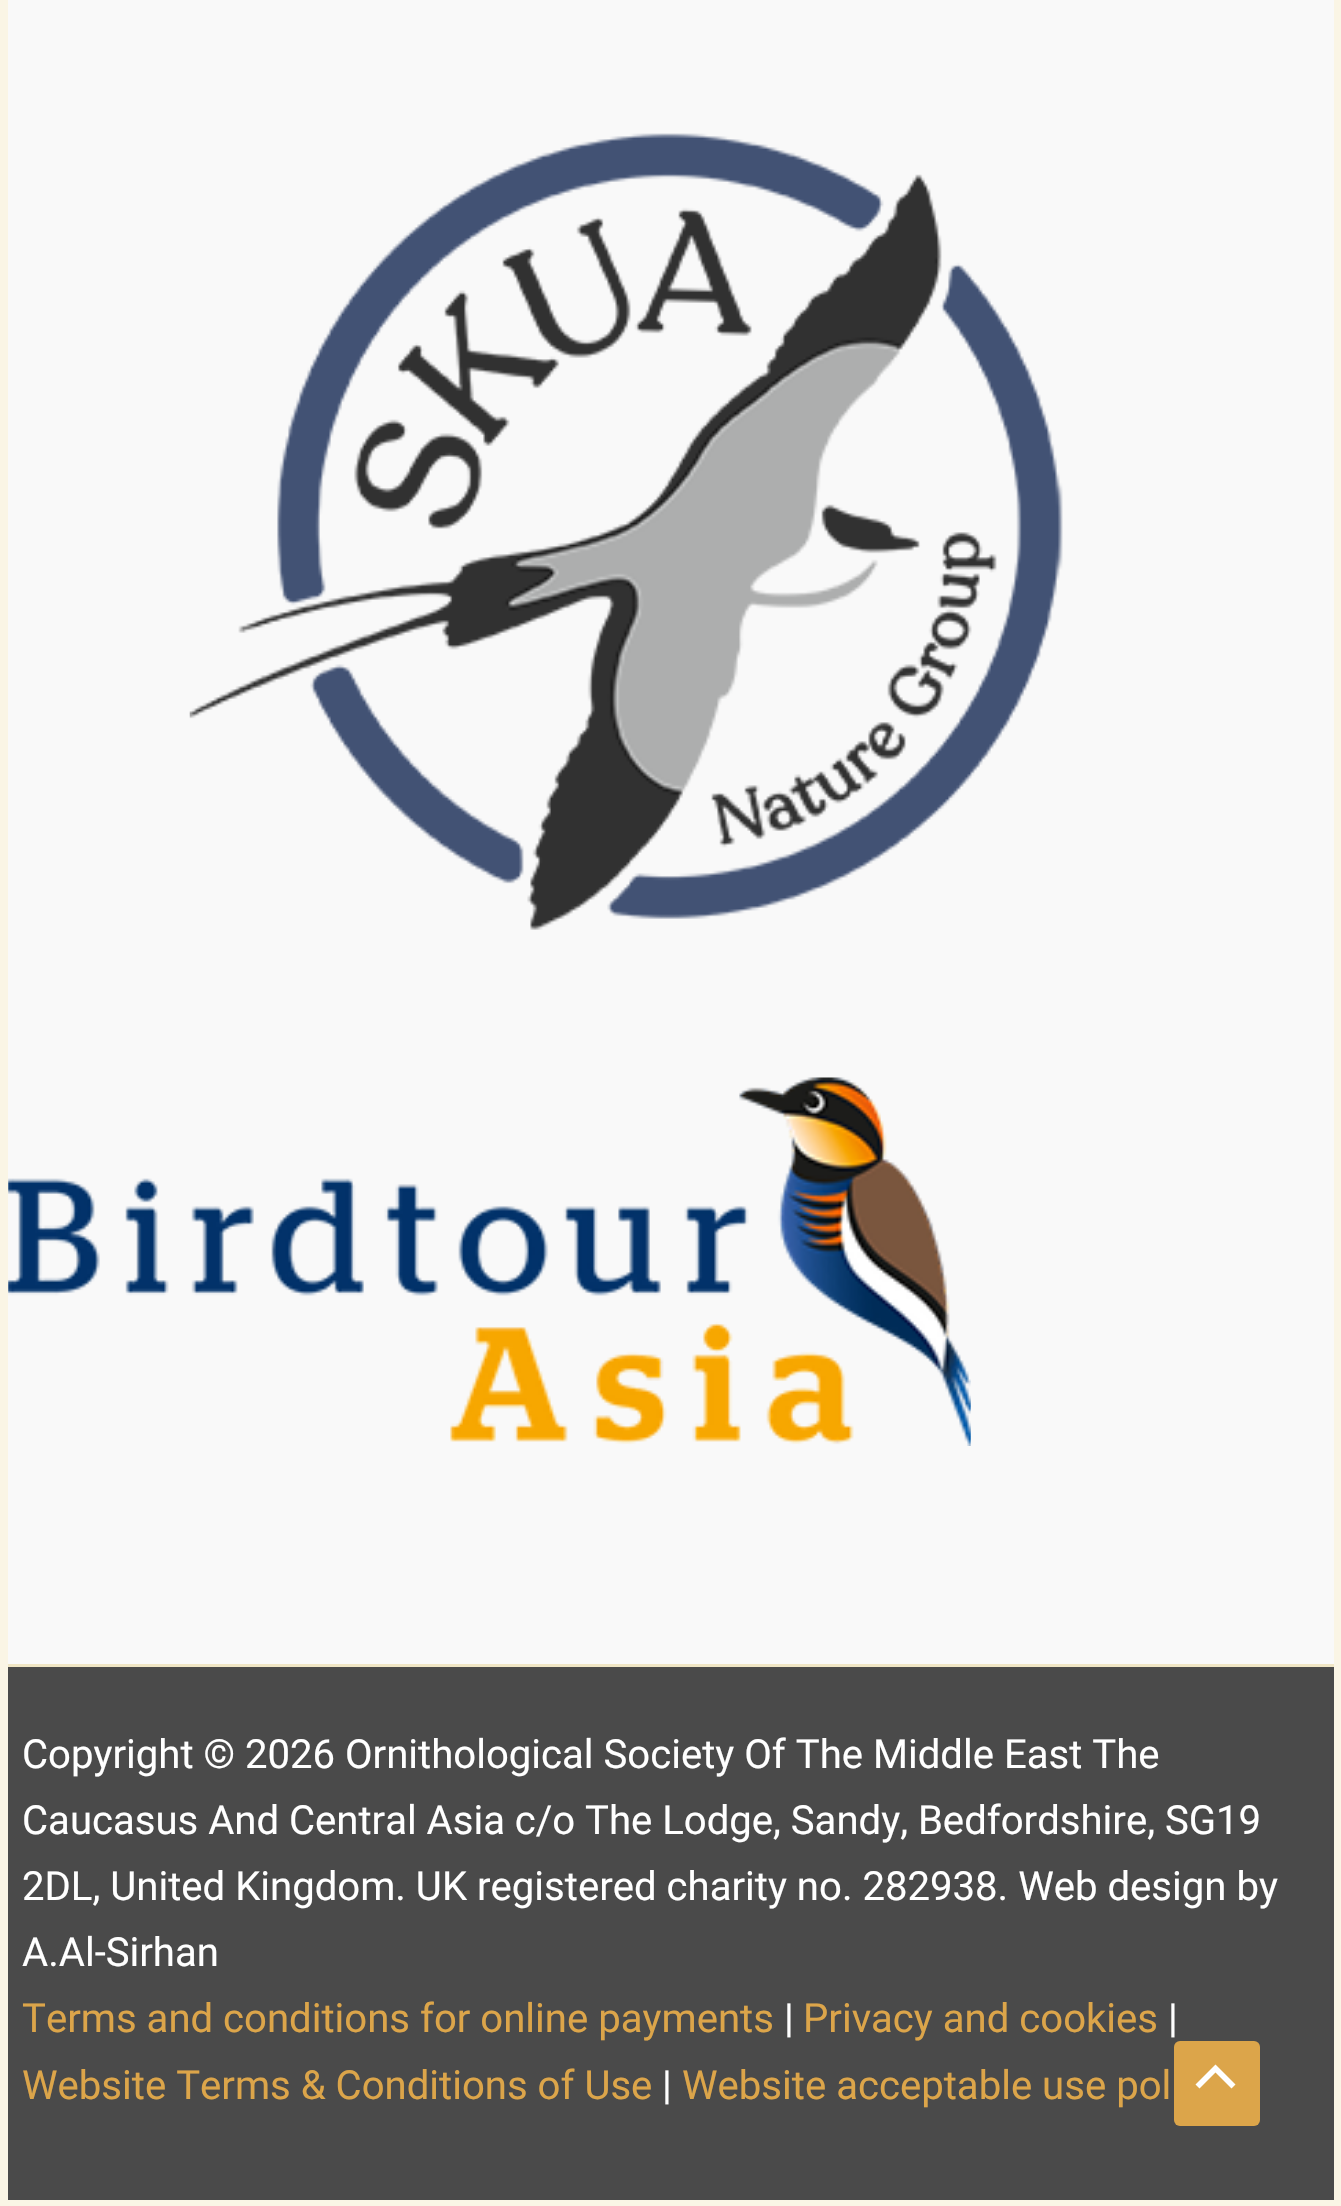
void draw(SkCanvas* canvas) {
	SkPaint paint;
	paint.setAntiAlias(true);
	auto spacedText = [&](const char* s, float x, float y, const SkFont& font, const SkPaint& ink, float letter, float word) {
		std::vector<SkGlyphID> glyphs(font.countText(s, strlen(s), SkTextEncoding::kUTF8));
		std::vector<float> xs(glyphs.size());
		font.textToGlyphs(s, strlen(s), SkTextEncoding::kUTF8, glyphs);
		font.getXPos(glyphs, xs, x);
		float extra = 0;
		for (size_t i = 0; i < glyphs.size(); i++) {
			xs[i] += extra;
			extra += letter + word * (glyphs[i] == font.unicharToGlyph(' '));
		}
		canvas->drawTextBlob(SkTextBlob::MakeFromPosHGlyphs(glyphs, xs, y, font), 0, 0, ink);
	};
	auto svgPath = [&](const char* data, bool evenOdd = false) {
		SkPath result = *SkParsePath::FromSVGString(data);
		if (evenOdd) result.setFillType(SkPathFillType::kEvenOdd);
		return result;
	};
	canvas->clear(0xfffaf5e5);
	paint.setColor(0xfff9f9f9);
	canvas->drawRect(SkRect::MakeXYWH(8, 0, 1326, 1664), paint);
	canvas->drawImageRect(SkImages::DeferredFromEncodedData(SkData::MakeFromFileName("img1.png")), SkRect::MakeXYWH(189, 133, 874, 797), SkSamplingOptions());
	canvas->drawImageRect(SkImages::DeferredFromEncodedData(SkData::MakeFromFileName("img2.png")), SkRect::MakeXYWH(8, 1077, 963, 369), SkSamplingOptions());
	paint.setColor(0xff4a4a4a);
	canvas->drawRect(SkRect::MakeXYWH(8, 1667, 1326, 533), paint);
	paint.setColor(0xfff0e6c5);
	canvas->drawRect(SkRect::MakeXYWH(8, 1664, 1326, 3), paint);
	SkFont f1(fontMgr->matchFamilyStyle("Roboto", SkFontStyle::Normal()), 40.1);
	f1.setSubpixel(true);
	paint.setColor(0xffffffff);
	canvas->drawString("Copyright © 2026 Ornithological Society Of The Middle East The", 22, 1768, f1, paint);
	spacedText("Caucasus And Central Asia c/o The Lodge, Sandy, Bedfordshire, SG19", 22, 1834, f1, paint, 0, -0.1);
	canvas->drawString("2DL, United Kingdom. UK registered charity no. 282938. Web design by", 22, 1900, f1, paint);
	canvas->drawString("A.Al-Sirhan", 22, 1966, f1, paint);
	paint.setColor(0xffdca54a);
	canvas->drawString("Terms and conditions for online payments", 22, 2032, f1, paint);
	paint.setColor(0xffffffff);
	canvas->drawString("|", 784, 2032, f1, paint);
	paint.setColor(0xffdca54a);
	canvas->drawString("Privacy and cookies", 803, 2032, f1, paint);
	paint.setColor(0xffffffff);
	canvas->drawString("|", 1168, 2032, f1, paint);
	paint.setColor(0xffdca54a);
	canvas->drawString("Website Terms & Conditions of Use", 22, 2099, f1, paint);
	paint.setColor(0xffffffff);
	canvas->drawString("|", 662, 2099, f1, paint);
	paint.setColor(0xffdca54a);
	canvas->drawString("Website acceptable use pol", 682, 2099, f1, paint);
	canvas->drawRoundRect(SkRect::MakeXYWH(1174, 2041, 86, 85), 6, 6, paint);
	paint.setColor(0xffffffff);
	canvas->drawPath(svgPath("M1235.5 2084.5L1215.5 2064.5L1195.5 2084.5L1199.5 2088.5L1215.5 2072.5L1231.5 2088.5Z"), paint);
}
